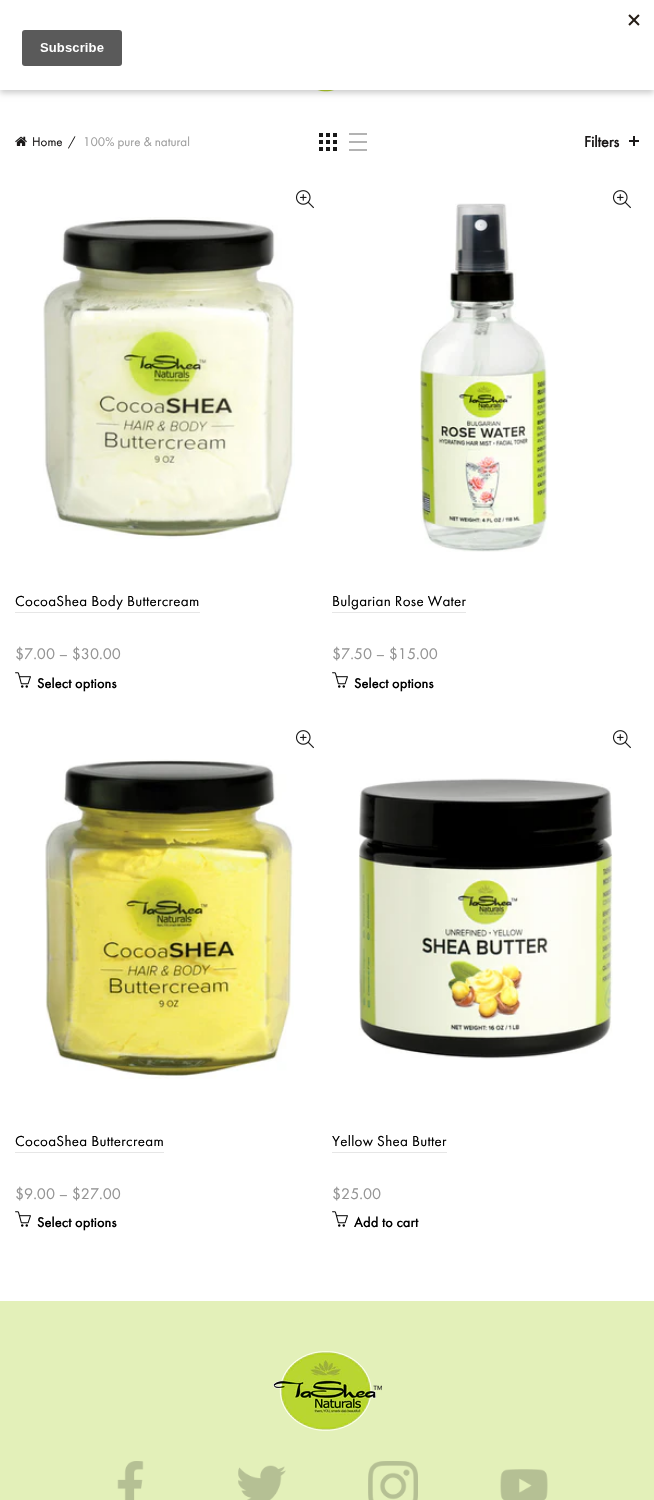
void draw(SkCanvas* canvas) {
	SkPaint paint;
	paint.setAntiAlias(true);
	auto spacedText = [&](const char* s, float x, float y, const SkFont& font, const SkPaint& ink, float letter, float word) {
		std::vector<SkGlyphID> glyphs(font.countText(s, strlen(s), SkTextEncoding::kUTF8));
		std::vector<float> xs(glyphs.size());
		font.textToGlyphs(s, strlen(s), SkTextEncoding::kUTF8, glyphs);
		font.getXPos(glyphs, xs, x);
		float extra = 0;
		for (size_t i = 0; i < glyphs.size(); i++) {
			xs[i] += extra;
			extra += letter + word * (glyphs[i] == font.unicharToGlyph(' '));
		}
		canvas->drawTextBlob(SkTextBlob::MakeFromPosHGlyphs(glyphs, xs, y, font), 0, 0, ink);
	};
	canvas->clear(0xffffffff);
	canvas->drawImageRect(SkImages::DeferredFromEncodedData(SkData::MakeFromFileName("img2.png")), SkRect::MakeXYWH(316, 90, 20, 2), SkSamplingOptions());
	paint.setColor(0x33000000);
	paint.setMaskFilter(SkMaskFilter::MakeBlur(kNormal_SkBlurStyle, 3));
	canvas->drawRect(SkRect::MakeXYWH(0, 3, 654, 90), paint);
	paint.setMaskFilter(nullptr);
	paint.setColor(0xffffffff);
	canvas->drawRect(SkRect::MakeXYWH(0, 0, 654, 90), paint);
	canvas->drawImageRect(SkImages::DeferredFromEncodedData(SkData::MakeFromFileName("img1.png")), SkRect::MakeXYWH(22, 14, 618, 52), SkSamplingOptions());
	canvas->drawImageRect(SkImages::DeferredFromEncodedData(SkData::MakeFromFileName("img3.png")), SkRect::MakeXYWH(15, 136, 12, 10), SkSamplingOptions());
	SkFont f1(fontMgr->matchFamilyStyle("Futura PT", SkFontStyle::Normal()), 13);
	f1.setSubpixel(true);
	paint.setColor(0xff1b1919);
	canvas->drawString("Home", 32, 146, f1, paint);
	canvas->drawString("/", 68, 146, f1, paint);
	paint.setColor(0xff9e9e9e);
	canvas->drawString("100% pure & natural", 83, 146, f1, paint);
	canvas->drawImageRect(SkImages::DeferredFromEncodedData(SkData::MakeFromFileName("img4.png")), SkRect::MakeXYWH(319, 133, 18, 18), SkSamplingOptions());
	paint.setColor(0xffb3b3b3);
	canvas->drawRect(SkRect::MakeXYWH(349, 133, 18, 2), paint);
	canvas->drawRect(SkRect::MakeXYWH(349, 149, 18, 2), paint);
	canvas->drawRect(SkRect::MakeXYWH(349, 141, 18, 2), paint);
	SkFont f2(fontMgr->matchFamilyStyle("Futura PT", SkFontStyle::Bold()), 16);
	f2.setSubpixel(true);
	paint.setColor(0xff1b1919);
	canvas->drawString("Filters", 584, 147, f2, paint);
	canvas->drawRect(SkRect::MakeXYWH(633, 136, 2, 10), paint);
	canvas->drawRect(SkRect::MakeXYWH(629, 140, 10, 2), paint);
	canvas->drawImageRect(SkImages::DeferredFromEncodedData(SkData::MakeFromFileName("img5.png")), SkRect::MakeXYWH(295, 190, 19, 19), SkSamplingOptions());
	canvas->drawImageRect(SkImages::DeferredFromEncodedData(SkData::MakeFromFileName("img6.png")), SkRect::MakeXYWH(43, 217, 252, 322), SkSamplingOptions());
	SkFont f3(fontMgr->matchFamilyStyle("Futura PT", SkFontStyle::Normal()), 15);
	f3.setSubpixel(true);
	paint.setColor(0xff000000);
	spacedText("CocoaShea Body Buttercream", 15, 606, f3, paint, 0.3, 0);
	paint.setColor(0xffe6e6e6);
	canvas->drawRect(SkRect::MakeXYWH(15, 612, 185, 1), paint);
	SkFont f4(fontMgr->matchFamilyStyle("Futura PT", SkFontStyle::Normal()), 16);
	f4.setSubpixel(true);
	paint.setColor(0xff949494);
	canvas->drawString("$7.00 – $30.00", 15, 659, f4, paint);
	canvas->drawImageRect(SkImages::DeferredFromEncodedData(SkData::MakeFromFileName("img7.png")), SkRect::MakeXYWH(15, 672, 16, 16), SkSamplingOptions());
	SkFont f5(fontMgr->matchFamilyStyle("Futura PT", SkFontStyle::Bold()), 14);
	f5.setSubpixel(true);
	paint.setColor(0xff000000);
	spacedText("Select options", 37, 688, f5, paint, 0.3, 0);
	canvas->drawImageRect(SkImages::DeferredFromEncodedData(SkData::MakeFromFileName("img5.png")), SkRect::MakeXYWH(612, 190, 19, 19), SkSamplingOptions());
	canvas->drawImageRect(SkImages::DeferredFromEncodedData(SkData::MakeFromFileName("img8.png")), SkRect::MakeXYWH(419, 203, 129, 349), SkSamplingOptions());
	spacedText("Bulgarian Rose Water", 332, 606, f3, paint, 0.3, 0);
	paint.setColor(0xffe6e6e6);
	canvas->drawRect(SkRect::MakeXYWH(332, 612, 134, 1), paint);
	paint.setColor(0xff949494);
	canvas->drawString("$7.50 – $15.00", 332, 659, f4, paint);
	canvas->drawImageRect(SkImages::DeferredFromEncodedData(SkData::MakeFromFileName("img7.png")), SkRect::MakeXYWH(332, 672, 16, 16), SkSamplingOptions());
	paint.setColor(0xff000000);
	spacedText("Select options", 354, 688, f5, paint, 0.3, 0);
	canvas->drawImageRect(SkImages::DeferredFromEncodedData(SkData::MakeFromFileName("img5.png")), SkRect::MakeXYWH(295, 730, 19, 19), SkSamplingOptions());
	canvas->drawImageRect(SkImages::DeferredFromEncodedData(SkData::MakeFromFileName("img9.png")), SkRect::MakeXYWH(45, 759, 249, 320), SkSamplingOptions());
	spacedText("CocoaShea Buttercream", 15, 1146, f3, paint, 0.3, 0);
	paint.setColor(0xffe6e6e6);
	canvas->drawRect(SkRect::MakeXYWH(15, 1152, 149, 1), paint);
	paint.setColor(0xff949494);
	canvas->drawString("$9.00 – $27.00", 15, 1199, f4, paint);
	canvas->drawImageRect(SkImages::DeferredFromEncodedData(SkData::MakeFromFileName("img7.png")), SkRect::MakeXYWH(15, 1211, 16, 16), SkSamplingOptions());
	paint.setColor(0xff000000);
	spacedText("Select options", 37, 1227, f5, paint, 0.3, 0);
	canvas->drawImageRect(SkImages::DeferredFromEncodedData(SkData::MakeFromFileName("img5.png")), SkRect::MakeXYWH(612, 730, 19, 19), SkSamplingOptions());
	canvas->drawImageRect(SkImages::DeferredFromEncodedData(SkData::MakeFromFileName("img10.png")), SkRect::MakeXYWH(358, 778, 255, 281), SkSamplingOptions());
	spacedText("Yellow Shea Butter", 332, 1146, f3, paint, 0.3, 0);
	paint.setColor(0xffe6e6e6);
	canvas->drawRect(SkRect::MakeXYWH(332, 1152, 115, 1), paint);
	paint.setColor(0xff949494);
	canvas->drawString("$25.00", 332, 1199, f4, paint);
	canvas->drawImageRect(SkImages::DeferredFromEncodedData(SkData::MakeFromFileName("img7.png")), SkRect::MakeXYWH(332, 1211, 16, 16), SkSamplingOptions());
	paint.setColor(0xff000000);
	spacedText("Add to cart", 354, 1227, f5, paint, 0.3, 0);
	paint.setColor(0xffe3f0b9);
	canvas->drawRect(SkRect::MakeXYWH(0, 1301, 654, 199), paint);
	canvas->drawImageRect(SkImages::DeferredFromEncodedData(SkData::MakeFromFileName("img11.png")), SkRect::MakeXYWH(273, 1351, 109, 80), SkSamplingOptions());
	canvas->drawImageRect(SkImages::DeferredFromEncodedData(SkData::MakeFromFileName("img12.png")), SkRect::MakeXYWH(117, 1461, 27, 39), SkSamplingOptions());
	canvas->drawImageRect(SkImages::DeferredFromEncodedData(SkData::MakeFromFileName("img13.png")), SkRect::MakeXYWH(238, 1465, 48, 35), SkSamplingOptions());
	canvas->drawImageRect(SkImages::DeferredFromEncodedData(SkData::MakeFromFileName("img14.png")), SkRect::MakeXYWH(368, 1461, 50, 39), SkSamplingOptions());
	canvas->drawImageRect(SkImages::DeferredFromEncodedData(SkData::MakeFromFileName("img15.png")), SkRect::MakeXYWH(500, 1469, 48, 31), SkSamplingOptions());
}
